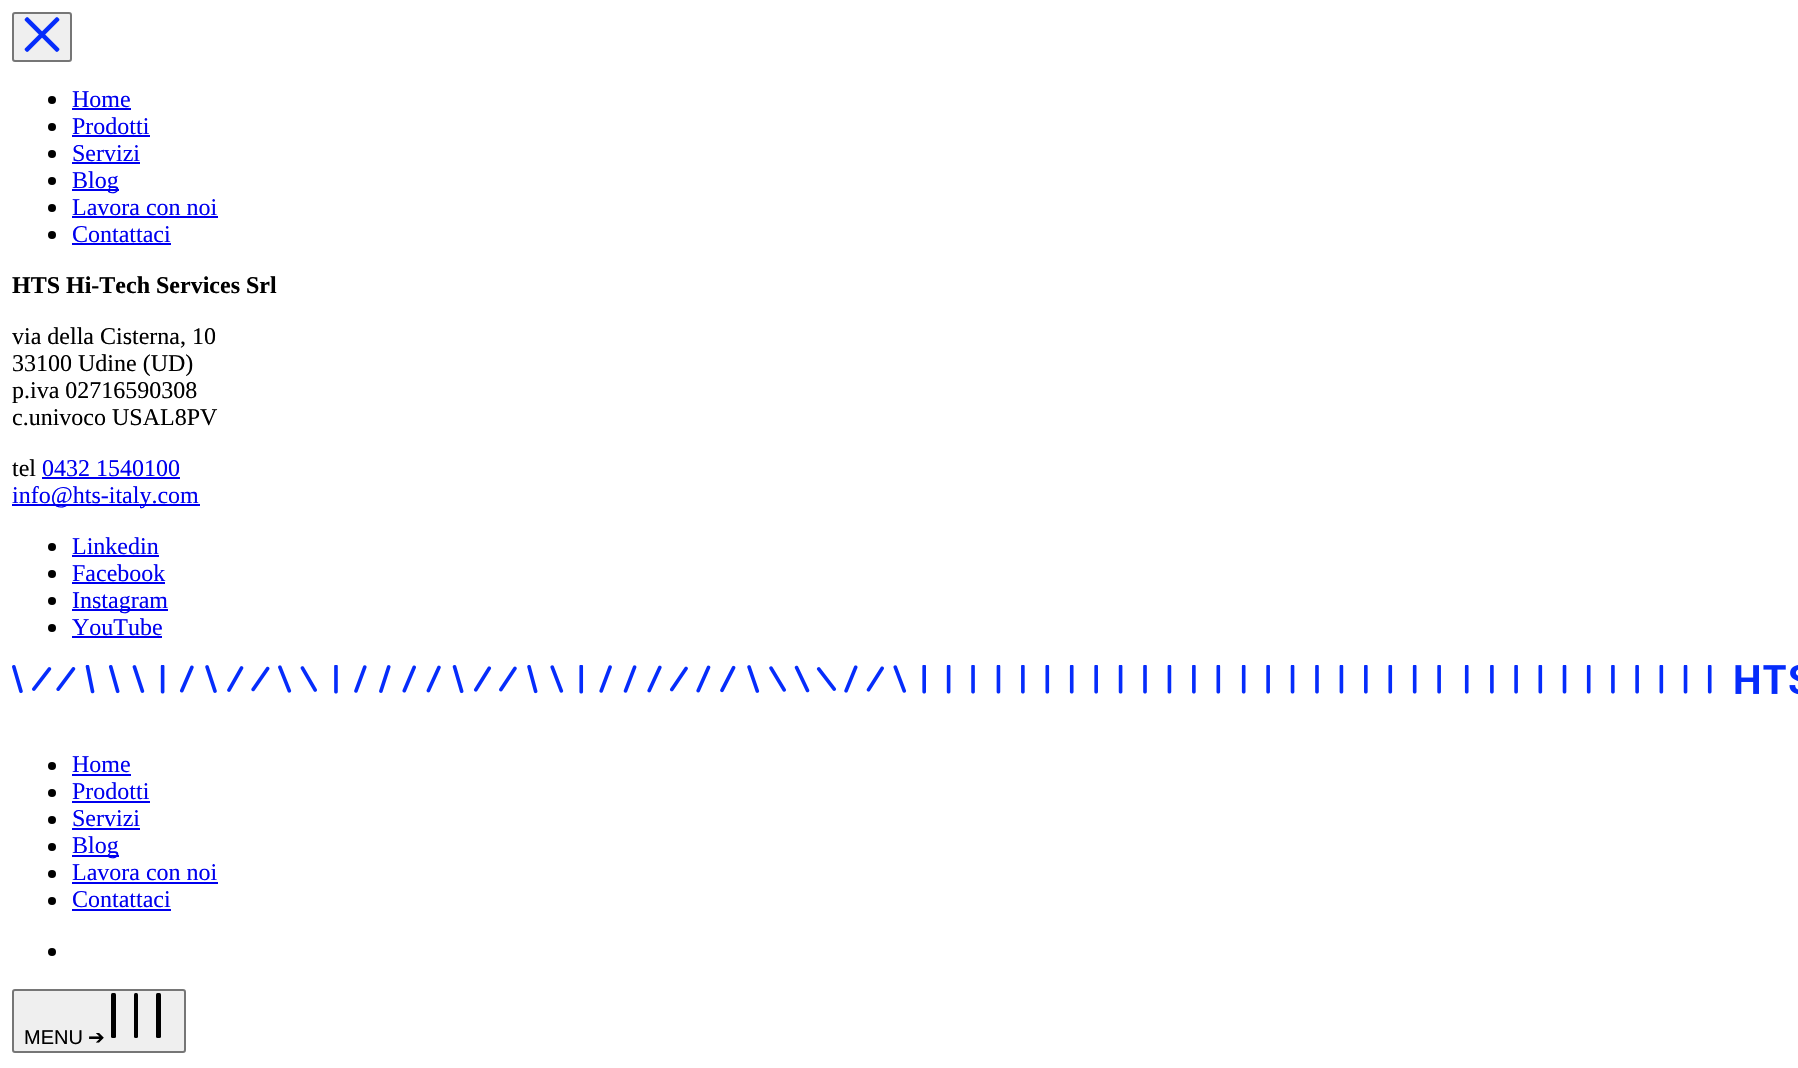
void draw(SkCanvas* canvas) {
	SkPaint paint;
	paint.setAntiAlias(true);
	canvas->clear(0xffffffff);
	paint.setColor(0xffefefef);
	canvas->drawRoundRect(SkRect::MakeXYWH(13, 13, 58, 48), 2, 2, paint);
	paint.setStroke(true);
	paint.setStrokeWidth(2);
	paint.setColor(0xff767676);
	canvas->drawRoundRect(SkRect::MakeXYWH(13, 13, 58, 48), 2, 2, paint);
	canvas->drawImageRect(SkImages::DeferredFromEncodedData(SkData::MakeFromFileName("img1.png")), SkRect::MakeXYWH(24, 17, 36, 35), SkSamplingOptions());
	paint.setStroke(false);
	paint.setColor(0xff000000);
	canvas->drawCircle(52, 100, 4, paint);
	SkFont f1(fontMgr->matchFamilyStyle("Liberation Serif", SkFontStyle::Normal()), 24);
	f1.setSubpixel(true);
	paint.setColor(0xff0000ee);
	canvas->drawString("Home", 72, 107, f1, paint);
	canvas->drawRect(SkRect::MakeXYWH(72, 108, 59, 2), paint);
	paint.setColor(0xff000000);
	canvas->drawCircle(52, 127, 4, paint);
	paint.setColor(0xff0000ee);
	canvas->drawString("Prodotti", 72, 134, f1, paint);
	canvas->drawRect(SkRect::MakeXYWH(72, 135, 78, 2), paint);
	paint.setColor(0xff000000);
	canvas->drawCircle(52, 154, 4, paint);
	paint.setColor(0xff0000ee);
	canvas->drawString("Servizi", 72, 161, f1, paint);
	canvas->drawRect(SkRect::MakeXYWH(72, 162, 68, 2), paint);
	paint.setColor(0xff000000);
	canvas->drawCircle(52, 181, 4, paint);
	paint.setColor(0xff0000ee);
	canvas->drawRect(SkRect::MakeXYWH(72, 189, 47, 2), paint);
	canvas->drawString("Blog", 72, 188, f1, paint);
	paint.setColor(0xff000000);
	canvas->drawCircle(52, 208, 4, paint);
	paint.setColor(0xff0000ee);
	canvas->drawString("Lavora con noi", 72, 215, f1, paint);
	canvas->drawRect(SkRect::MakeXYWH(72, 216, 146, 2), paint);
	paint.setColor(0xff000000);
	canvas->drawCircle(52, 235, 4, paint);
	paint.setColor(0xff0000ee);
	canvas->drawString("Contattaci", 72, 242, f1, paint);
	canvas->drawRect(SkRect::MakeXYWH(72, 243, 99, 2), paint);
	SkFont f2(fontMgr->matchFamilyStyle("Liberation Serif", SkFontStyle::Bold()), 24);
	f2.setSubpixel(true);
	paint.setColor(0xff000000);
	canvas->drawString("HTS Hi-Tech Services Srl", 12, 293, f2, paint);
	canvas->drawString("via della Cisterna, 10", 12, 344, f1, paint);
	canvas->drawString("33100 Udine (UD)", 12, 371, f1, paint);
	canvas->drawString("p.iva 02716590308", 12, 398, f1, paint);
	canvas->drawString("c.univoco USAL8PV", 12, 425, f1, paint);
	canvas->drawString("tel", 12, 476, f1, paint);
	paint.setColor(0xff0000ee);
	canvas->drawString("0432 1540100", 42, 476, f1, paint);
	canvas->drawRect(SkRect::MakeXYWH(42, 477, 138, 2), paint);
	canvas->drawRect(SkRect::MakeXYWH(12, 504, 188, 2), paint);
	canvas->drawString("info@hts-italy.com", 12, 503, f1, paint);
	paint.setColor(0xff000000);
	canvas->drawCircle(52, 547, 4, paint);
	paint.setColor(0xff0000ee);
	canvas->drawString("Linkedin", 72, 554, f1, paint);
	canvas->drawRect(SkRect::MakeXYWH(72, 555, 87, 2), paint);
	paint.setColor(0xff000000);
	canvas->drawCircle(52, 574, 4, paint);
	paint.setColor(0xff0000ee);
	canvas->drawString("Facebook", 72, 581, f1, paint);
	canvas->drawRect(SkRect::MakeXYWH(72, 582, 93, 2), paint);
	paint.setColor(0xff000000);
	canvas->drawCircle(52, 601, 4, paint);
	paint.setColor(0xff0000ee);
	canvas->drawRect(SkRect::MakeXYWH(72, 609, 96, 2), paint);
	canvas->drawString("Instagram", 72, 608, f1, paint);
	paint.setColor(0xff000000);
	canvas->drawCircle(52, 628, 4, paint);
	paint.setColor(0xff0000ee);
	canvas->drawString("YouTube", 72, 635, f1, paint);
	canvas->drawRect(SkRect::MakeXYWH(72, 636, 90, 2), paint);
	canvas->drawImageRect(SkImages::DeferredFromEncodedData(SkData::MakeFromFileName("img2.png")), SkRect::MakeXYWH(12, 665, 1786, 30), SkSamplingOptions());
	paint.setColor(0xff000000);
	canvas->drawCircle(52, 766, 4, paint);
	paint.setColor(0xff0000ee);
	canvas->drawString("Home", 72, 772, f1, paint);
	canvas->drawRect(SkRect::MakeXYWH(72, 774, 59, 2), paint);
	paint.setColor(0xff000000);
	canvas->drawCircle(52, 793, 4, paint);
	paint.setColor(0xff0000ee);
	canvas->drawString("Prodotti", 72, 799, f1, paint);
	canvas->drawRect(SkRect::MakeXYWH(72, 801, 78, 2), paint);
	paint.setColor(0xff000000);
	canvas->drawCircle(52, 820, 4, paint);
	paint.setColor(0xff0000ee);
	canvas->drawString("Servizi", 72, 826, f1, paint);
	canvas->drawRect(SkRect::MakeXYWH(72, 828, 68, 2), paint);
	paint.setColor(0xff000000);
	canvas->drawCircle(52, 847, 4, paint);
	paint.setColor(0xff0000ee);
	canvas->drawRect(SkRect::MakeXYWH(72, 855, 47, 2), paint);
	canvas->drawString("Blog", 72, 853, f1, paint);
	paint.setColor(0xff000000);
	canvas->drawCircle(52, 874, 4, paint);
	paint.setColor(0xff0000ee);
	canvas->drawString("Lavora con noi", 72, 880, f1, paint);
	canvas->drawRect(SkRect::MakeXYWH(72, 882, 146, 2), paint);
	paint.setColor(0xff000000);
	canvas->drawCircle(52, 901, 4, paint);
	paint.setColor(0xff0000ee);
	canvas->drawString("Contattaci", 72, 907, f1, paint);
	canvas->drawRect(SkRect::MakeXYWH(72, 909, 99, 2), paint);
	paint.setColor(0xff000000);
	canvas->drawCircle(52, 952, 4, paint);
	paint.setColor(0xffefefef);
	canvas->drawRoundRect(SkRect::MakeXYWH(13, 990, 172, 62), 2, 2, paint);
	paint.setStroke(true);
	paint.setColor(0xff767676);
	canvas->drawRoundRect(SkRect::MakeXYWH(13, 990, 172, 62), 2, 2, paint);
	SkFont f3(fontMgr->matchFamilyStyle("Liberation Sans", SkFontStyle::Normal()), 20);
	f3.setSubpixel(true);
	paint.setStroke(false);
	paint.setColor(0xff000000);
	canvas->drawString("MENU", 24, 1044, f3, paint);
	SkFont f4(fontMgr->matchFamilyStyle("DejaVu Sans", SkFontStyle::Normal()), 20);
	f4.setSubpixel(true);
	canvas->drawString("➔", 88, 1044, f4, paint);
	canvas->drawRoundRect(SkRect::MakeXYWH(111, 993, 5, 45), 1.5, 1.5, paint);
	canvas->drawRoundRect(SkRect::MakeXYWH(134, 993, 4, 45), 1.5, 1.5, paint);
	canvas->drawRoundRect(SkRect::MakeXYWH(156, 993, 5, 45), 1.5, 1.5, paint);
}
